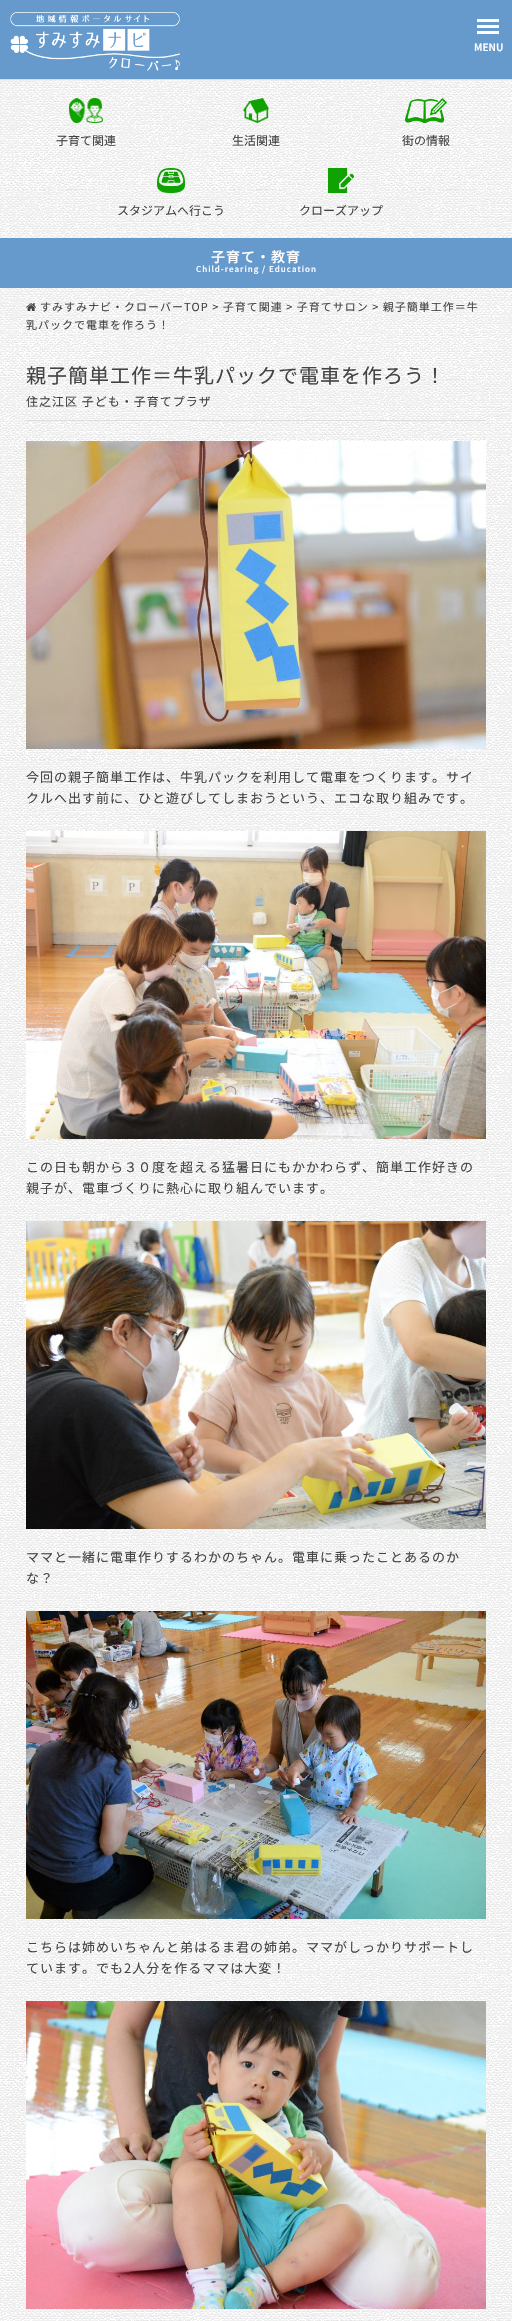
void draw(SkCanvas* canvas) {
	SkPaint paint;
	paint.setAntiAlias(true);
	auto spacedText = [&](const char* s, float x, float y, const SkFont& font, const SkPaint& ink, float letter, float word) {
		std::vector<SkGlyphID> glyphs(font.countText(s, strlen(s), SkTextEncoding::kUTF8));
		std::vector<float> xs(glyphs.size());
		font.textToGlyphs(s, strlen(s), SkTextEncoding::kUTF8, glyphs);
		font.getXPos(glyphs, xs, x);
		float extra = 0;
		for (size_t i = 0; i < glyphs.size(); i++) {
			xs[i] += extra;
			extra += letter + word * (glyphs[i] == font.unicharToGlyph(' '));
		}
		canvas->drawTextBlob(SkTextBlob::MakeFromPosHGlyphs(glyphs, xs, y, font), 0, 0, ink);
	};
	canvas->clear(0xffffffff);
	canvas->drawImageRect(SkImages::DeferredFromEncodedData(SkData::MakeFromFileName("img1.png")), SkRect::MakeXYWH(0, 80, 512, 2241), SkSamplingOptions());
	paint.setColor(0xff6699cc);
	canvas->drawRect(SkRect::MakeXYWH(0, 0, 512, 79), paint);
	paint.setColor(0xffffffff);
	canvas->drawRect(SkRect::MakeXYWH(477, 19, 22, 3), paint);
	canvas->drawRect(SkRect::MakeXYWH(477, 25, 22, 3), paint);
	canvas->drawRect(SkRect::MakeXYWH(477, 31, 22, 3), paint);
	paint.setColor(0xffdddddd);
	canvas->drawRect(SkRect::MakeXYWH(0, 79, 512, 1), paint);
	canvas->drawImageRect(SkImages::DeferredFromEncodedData(SkData::MakeFromFileName("img2.png")), SkRect::MakeXYWH(10, 12, 170, 59), SkSamplingOptions());
	SkFont f1(fontMgr->matchFamilyStyle("Noto Sans JP", SkFontStyle(600, SkFontStyle::kNormal_Width, SkFontStyle::kUpright_Slant)), 10);
	f1.setSubpixel(true);
	paint.setColor(0xffffffff);
	canvas->drawString("MENU", 474, 51, f1, paint);
	canvas->drawImageRect(SkImages::DeferredFromEncodedData(SkData::MakeFromFileName("img3.png")), SkRect::MakeXYWH(69, 98, 34, 25), SkSamplingOptions());
	SkFont f2(fontMgr->matchFamilyStyle("Noto Sans JP", SkFontStyle::Normal()), 12);
	f2.setSubpixel(true);
	paint.setColor(0xff434343);
	canvas->drawString("子育て関連", 56, 145, f2, paint);
	canvas->drawImageRect(SkImages::DeferredFromEncodedData(SkData::MakeFromFileName("img4.png")), SkRect::MakeXYWH(243, 98, 26, 25), SkSamplingOptions());
	canvas->drawString("生活関連", 232, 145, f2, paint);
	canvas->drawImageRect(SkImages::DeferredFromEncodedData(SkData::MakeFromFileName("img5.png")), SkRect::MakeXYWH(405, 98, 42, 25), SkSamplingOptions());
	canvas->drawString("街の情報", 402, 145, f2, paint);
	canvas->drawImageRect(SkImages::DeferredFromEncodedData(SkData::MakeFromFileName("img6.png")), SkRect::MakeXYWH(157, 168, 28, 25), SkSamplingOptions());
	canvas->drawString("スタジアムへ行こう", 117, 215, f2, paint);
	canvas->drawImageRect(SkImages::DeferredFromEncodedData(SkData::MakeFromFileName("img7.png")), SkRect::MakeXYWH(328, 168, 26, 25), SkSamplingOptions());
	canvas->drawString("クローズアップ", 299, 215, f2, paint);
	paint.setColor(0xff6699cc);
	canvas->drawRect(SkRect::MakeXYWH(0, 238, 512, 50), paint);
	SkFont f3(fontMgr->matchFamilyStyle("Noto Sans JP", SkFontStyle(500, SkFontStyle::kNormal_Width, SkFontStyle::kUpright_Slant)), 14);
	f3.setSubpixel(true);
	paint.setColor(0xffffffff);
	spacedText("子育て・教育", 211, 262, f3, paint, 1, 0);
	SkFont f4(fontMgr->matchFamilyStyle("Noto Sans JP", SkFontStyle(500, SkFontStyle::kNormal_Width, SkFontStyle::kUpright_Slant)), 8);
	f4.setSubpixel(true);
	spacedText("Child-rearing / Education", 196, 272, f4, paint, 1, 0);
	canvas->drawImageRect(SkImages::DeferredFromEncodedData(SkData::MakeFromFileName("img8.png")), SkRect::MakeXYWH(26, 303, 10, 8), SkSamplingOptions());
	SkFont f5(fontMgr->matchFamilyStyle("Noto Sans JP", SkFontStyle::Normal()), 11);
	f5.setSubpixel(true);
	paint.setColor(0xff434343);
	spacedText("すみすみナビ・クローバーTOP > 子育て関連 > 子育てサロン > 親子簡単工作＝牛", 40, 311, f5, paint, 1, 0);
	spacedText("乳パックで電車を作ろう！", 26, 329, f5, paint, 1, 0);
	paint.setColor(0xffdddddd);
	canvas->drawRect(SkRect::MakeXYWH(26, 420, 460, 1), paint);
	SkFont f6(fontMgr->matchFamilyStyle("Noto Sans JP", SkFontStyle::Normal()), 20);
	f6.setSubpixel(true);
	paint.setColor(0xff434343);
	spacedText("親子簡単工作＝牛乳パックで電車を作ろう！", 26, 383, f6, paint, 1, 0);
	spacedText("住之江区 子ども・子育てプラザ", 26, 406, f2, paint, 1, 0);
	canvas->drawImageRect(SkImages::DeferredFromEncodedData(SkData::MakeFromFileName("img9.png")), SkRect::MakeXYWH(26, 441, 460, 308), SkSamplingOptions());
	SkFont f7(fontMgr->matchFamilyStyle("Noto Sans JP", SkFontStyle::Normal()), 13);
	f7.setSubpixel(true);
	spacedText("今回の親子簡単工作は、牛乳パックを利用して電車をつくります。サイ", 26, 782, f7, paint, 1, 0);
	spacedText("クルへ出す前に、ひと遊びしてしまおうという、エコな取り組みです。", 26, 803, f7, paint, 1, 0);
	canvas->drawImageRect(SkImages::DeferredFromEncodedData(SkData::MakeFromFileName("img10.png")), SkRect::MakeXYWH(26, 831, 460, 308), SkSamplingOptions());
	spacedText("この日も朝から３０度を超える猛暑日にもかかわらず、簡単工作好きの", 26, 1172, f7, paint, 1, 0);
	spacedText("親子が、電車づくりに熱心に取り組んでいます。", 26, 1193, f7, paint, 1, 0);
	canvas->drawImageRect(SkImages::DeferredFromEncodedData(SkData::MakeFromFileName("img11.png")), SkRect::MakeXYWH(26, 1221, 460, 308), SkSamplingOptions());
	spacedText("ママと一緒に電車作りするわかのちゃん。電車に乗ったことあるのか", 26, 1562, f7, paint, 1, 0);
	spacedText("な？", 26, 1583, f7, paint, 1, 0);
	canvas->drawImageRect(SkImages::DeferredFromEncodedData(SkData::MakeFromFileName("img12.png")), SkRect::MakeXYWH(26, 1611, 460, 308), SkSamplingOptions());
	spacedText("こちらは姉めいちゃんと弟はるま君の姉弟。ママがしっかりサポートし", 26, 1952, f7, paint, 1, 0);
	spacedText("ています。でも2人分を作るママは大変！", 26, 1973, f7, paint, 1, 0);
	canvas->drawImageRect(SkImages::DeferredFromEncodedData(SkData::MakeFromFileName("img13.png")), SkRect::MakeXYWH(26, 2001, 460, 308), SkSamplingOptions());
}
